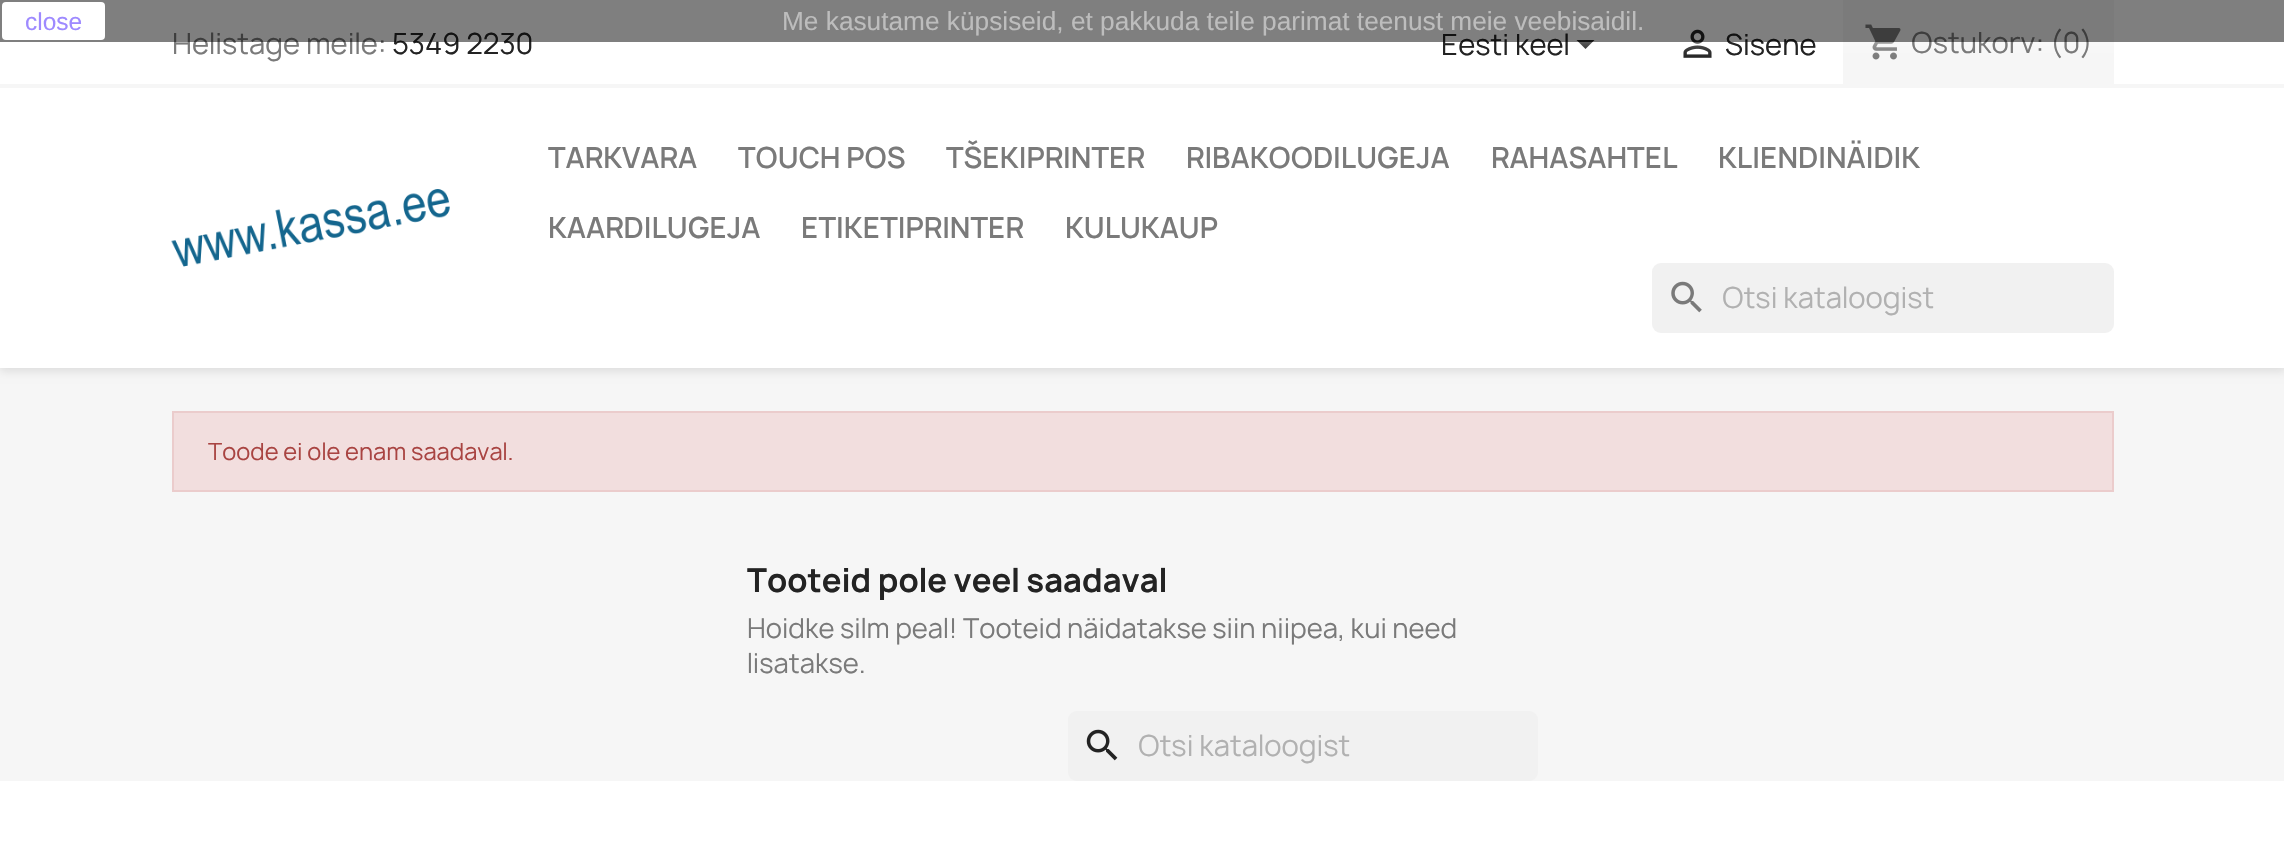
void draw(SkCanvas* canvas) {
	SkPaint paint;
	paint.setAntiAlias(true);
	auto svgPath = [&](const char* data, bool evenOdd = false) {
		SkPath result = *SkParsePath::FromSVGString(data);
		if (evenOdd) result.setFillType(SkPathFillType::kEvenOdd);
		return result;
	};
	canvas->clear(0xffffffff);
	paint.setColor(0xfff6f6f6);
	canvas->drawRect(SkRect::MakeXYWH(0, 368, 2284, 413), paint);
	paint.setColor(0x1c000000);
	paint.setMaskFilter(SkMaskFilter::MakeBlur(kNormal_SkBlurStyle, 4.5));
	canvas->drawRect(SkRect::MakeXYWH(0, 4, 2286, 367), paint);
	paint.setMaskFilter(nullptr);
	paint.setColor(0xffffffff);
	canvas->drawRect(SkRect::MakeXYWH(0, 0, 2284, 368), paint);
	paint.setColor(0xff232323);
	canvas->drawPath(svgPath("M1576.5 40H1594.5L1585.5 49Z"), paint);
	canvas->drawImageRect(SkImages::DeferredFromEncodedData(SkData::MakeFromFileName("img1.png")), SkRect::MakeXYWH(1683, 29, 29, 29), SkSamplingOptions());
	paint.setColor(0xfff6f6f6);
	canvas->drawRect(SkRect::MakeXYWH(1843, 0, 271, 84), paint);
	canvas->drawImageRect(SkImages::DeferredFromEncodedData(SkData::MakeFromFileName("img2.png")), SkRect::MakeXYWH(1865, 24, 36, 36), SkSamplingOptions());
	canvas->save();
	canvas->clipRect(SkRect::MakeXYWH(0, 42, 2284, 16));
	paint.setColor(0x80ffffff);
	paint.setMaskFilter(SkMaskFilter::MakeBlur(kNormal_SkBlurStyle, 9));
	canvas->drawRect(SkRect::MakeXYWH(0, 0, 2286, 42), paint);
	paint.setMaskFilter(nullptr);
	canvas->restore();
	SkFont f1(fontMgr->matchFamilyStyle("Manrope", SkFontStyle::Normal()), 28);
	f1.setSubpixel(true);
	paint.setColor(0xff7a7a7a);
	canvas->drawString("Helistage meile:", 172, 54, f1, paint);
	paint.setColor(0xff232323);
	canvas->drawString("5349 2230", 392, 54, f1, paint);
	canvas->drawString("Eesti keel", 1441, 55, f1, paint);
	canvas->drawString("Sisene", 1725, 55, f1, paint);
	paint.setColor(0xff7a7a7a);
	canvas->drawString("Ostukorv: (0)", 1911, 53, f1, paint);
	paint.setColor(0x80000000);
	canvas->drawRect(SkRect::MakeXYWH(0, 0, 2284, 42), paint);
	paint.setColor(0xffffffff);
	canvas->drawRoundRect(SkRect::MakeXYWH(2, 2, 103, 38), 4, 4, paint);
	SkFont f2(fontMgr->matchFamilyStyle("Liberation Sans", SkFontStyle::Normal()), 24.5);
	f2.setSubpixel(true);
	paint.setColor(0xff9e8aff);
	canvas->drawString("close", 25, 30, f2, paint);
	SkFont f3(fontMgr->matchFamilyStyle("Liberation Sans", SkFontStyle::Normal()), 26.25);
	f3.setSubpixel(true);
	paint.setColor(0xffbdbdbd);
	canvas->drawString("Me kasutame küpsiseid, et pakkuda teile parimat teenust meie veebisaidil.", 782, 30, f3, paint);
	paint.setColor(0xfff6f6f6);
	canvas->drawRect(SkRect::MakeXYWH(0, 84, 2284, 4), paint);
	canvas->drawImageRect(SkImages::DeferredFromEncodedData(SkData::MakeFromFileName("img3.png")), SkRect::MakeXYWH(171, 189, 279, 78), SkSamplingOptions());
	SkFont f4(fontMgr->matchFamilyStyle("Manrope", SkFontStyle(600, SkFontStyle::kNormal_Width, SkFontStyle::kUpright_Slant)), 28);
	f4.setSubpixel(true);
	paint.setColor(0xff7a7a7a);
	canvas->drawString("TARKVARA", 548, 168, f4, paint);
	canvas->drawString("TOUCH POS", 738, 168, f4, paint);
	canvas->drawString("TŠEKIPRINTER", 946, 168, f4, paint);
	canvas->drawString("RIBAKOODILUGEJA", 1186, 168, f4, paint);
	canvas->drawString("RAHASAHTEL", 1491, 168, f4, paint);
	canvas->drawString("KLIENDINÄIDIK", 1718, 168, f4, paint);
	canvas->drawString("KAARDILUGEJA", 548, 238, f4, paint);
	canvas->drawString("ETIKETIPRINTER", 801, 238, f4, paint);
	canvas->drawString("KULUKAUP", 1065, 238, f4, paint);
	paint.setColor(0xfff1f1f1);
	canvas->drawRoundRect(SkRect::MakeXYWH(1652, 263, 462, 70), 9, 9, paint);
	canvas->drawImageRect(SkImages::DeferredFromEncodedData(SkData::MakeFromFileName("img4.png")), SkRect::MakeXYWH(1671, 281, 31, 32), SkSamplingOptions());
	paint.setColor(0xffb1b1b1);
	canvas->drawString("Otsi kataloogist", 1722, 308, f1, paint);
	paint.setColor(0xfff2dede);
	canvas->drawRect(SkRect::MakeXYWH(173, 412, 1940, 79), paint);
	paint.setStroke(true);
	paint.setStrokeWidth(2);
	paint.setColor(0xffebcccc);
	canvas->drawRect(SkRect::MakeXYWH(173, 412, 1940, 79), paint);
	SkFont f5(fontMgr->matchFamilyStyle("Manrope", SkFontStyle::Normal()), 22.75);
	f5.setSubpixel(true);
	paint.setStroke(false);
	paint.setColor(0xffa94442);
	canvas->drawString("Toode ei ole enam saadaval.", 208, 460, f5, paint);
	SkFont f6(fontMgr->matchFamilyStyle("Manrope", SkFontStyle::Bold()), 31.5);
	f6.setSubpixel(true);
	paint.setColor(0xff232323);
	canvas->drawString("Tooteid pole veel saadaval", 747, 592, f6, paint);
	SkFont f7(fontMgr->matchFamilyStyle("Manrope", SkFontStyle::Normal()), 26.25);
	f7.setSubpixel(true);
	paint.setColor(0xff7a7a7a);
	canvas->drawString("Hoidke silm peal! Tooteid näidatakse siin niipea, kui need", 747, 638, f7, paint);
	canvas->drawString("lisatakse.", 747, 673, f7, paint);
	paint.setColor(0xfff1f1f1);
	canvas->drawRoundRect(SkRect::MakeXYWH(1068, 711, 470, 70), 9, 9, paint);
	canvas->drawImageRect(SkImages::DeferredFromEncodedData(SkData::MakeFromFileName("img5.png")), SkRect::MakeXYWH(1086, 729, 32, 32), SkSamplingOptions());
	paint.setColor(0xffb1b1b1);
	canvas->drawString("Otsi kataloogist", 1138, 756, f1, paint);
}
